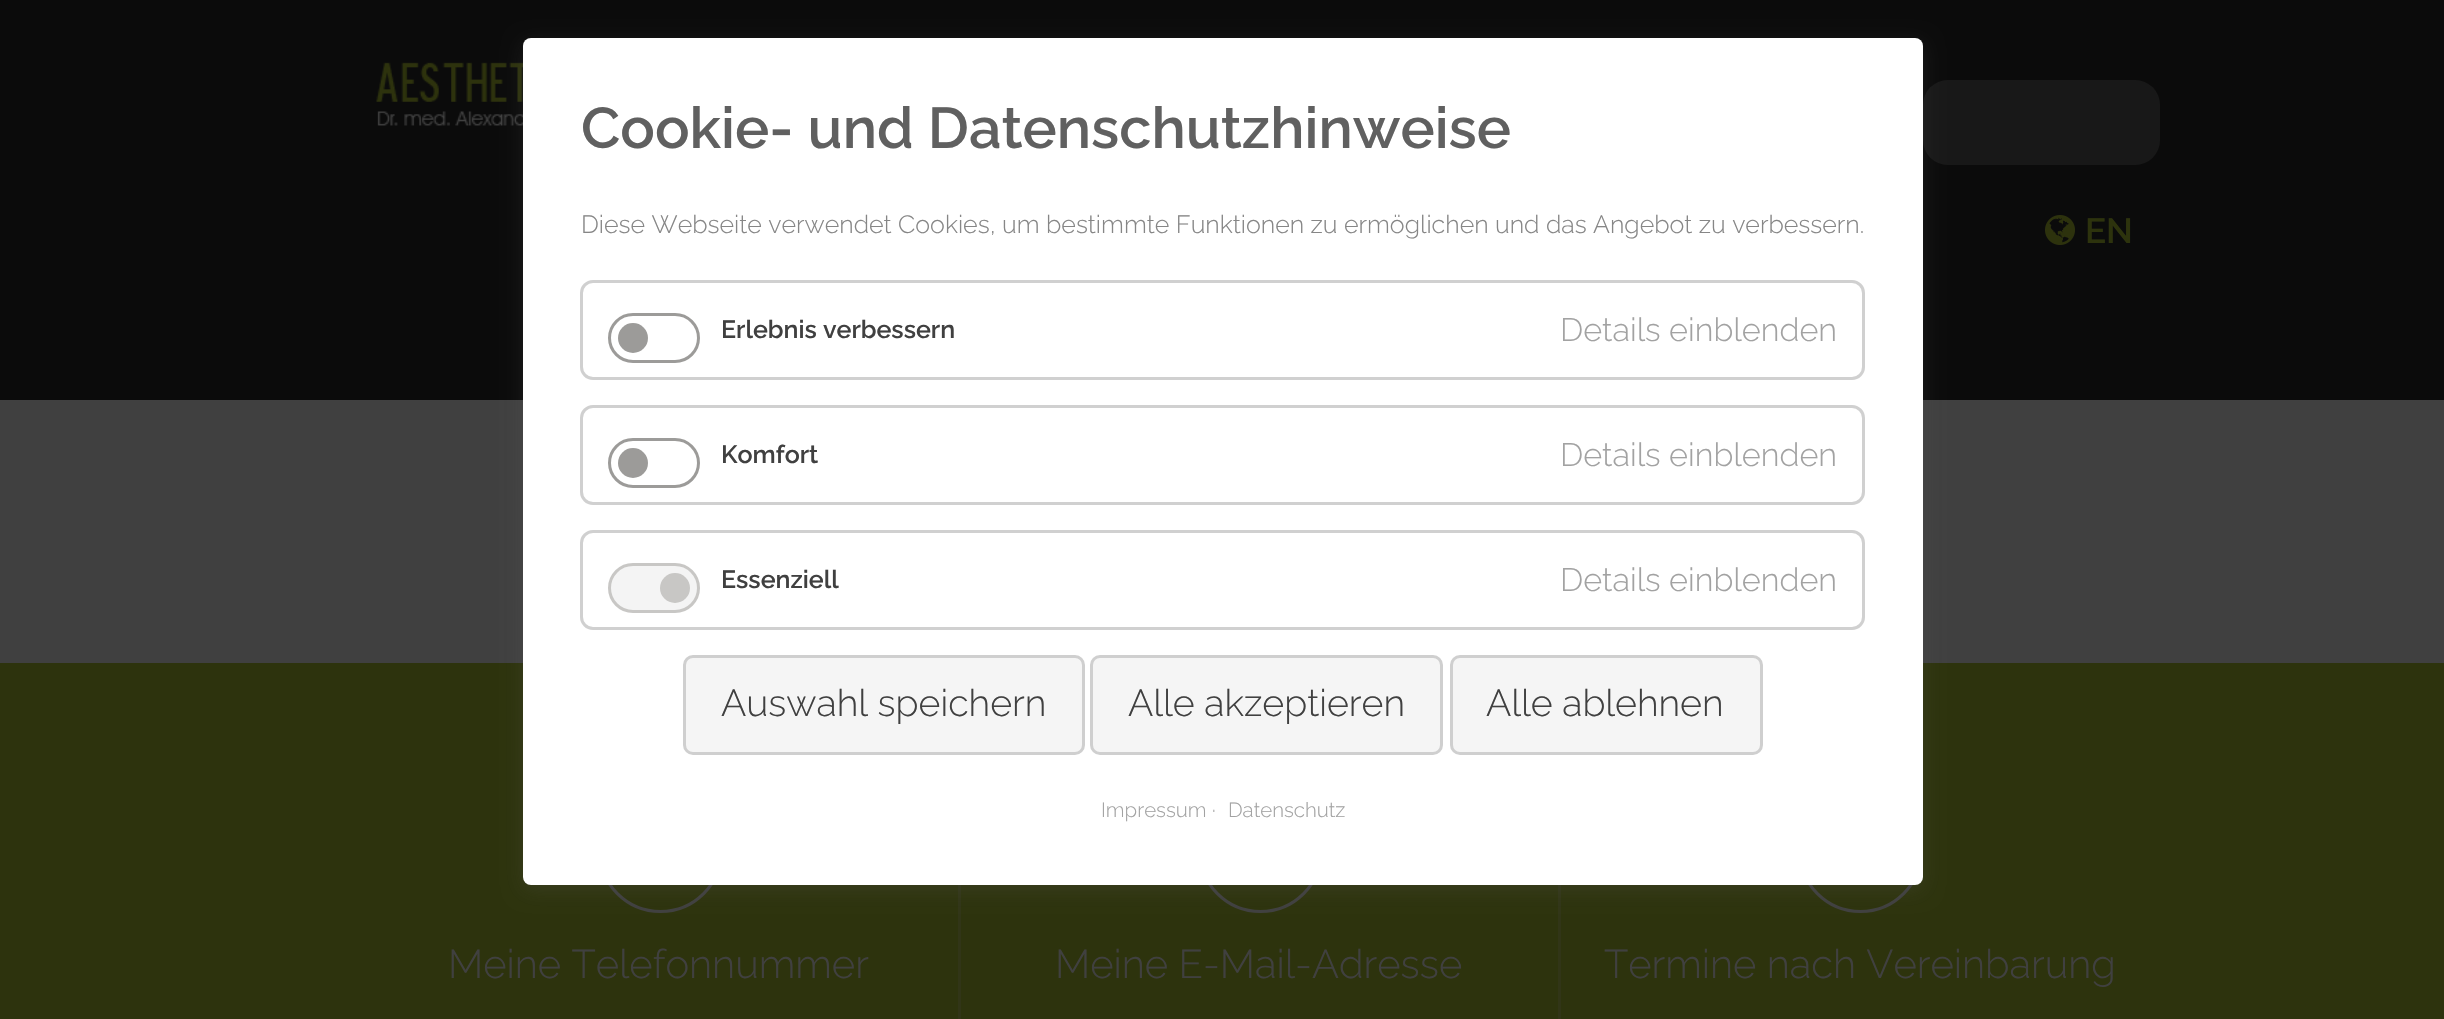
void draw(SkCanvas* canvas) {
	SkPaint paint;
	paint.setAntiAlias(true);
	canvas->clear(0xff404040);
	paint.setColor(0xff0b0b0b);
	canvas->drawRect(SkRect::MakeXYWH(0, 0, 2444, 400), paint);
	canvas->drawImageRect(SkImages::DeferredFromEncodedData(SkData::MakeFromFileName("img1.png")), SkRect::MakeXYWH(376, 62, 147, 64), SkSamplingOptions());
	paint.setColor(0xff181818);
	canvas->drawRoundRect(SkRect::MakeXYWH(1923, 80, 237, 85), 25, 25, paint);
	paint.setColor(0xff2d330d);
	canvas->drawRect(SkRect::MakeXYWH(0, 663, 2444, 356), paint);
	paint.setColor(0xff313517);
	canvas->drawRect(SkRect::MakeXYWH(958, 885, 3, 134), paint);
	paint.setStroke(true);
	paint.setStrokeWidth(3);
	paint.setColor(0xff404040);
	canvas->drawCircle(660.5, 850.5, 61, paint);
	paint.setStroke(false);
	paint.setColor(0xff313517);
	canvas->drawRect(SkRect::MakeXYWH(1558, 885, 3, 134), paint);
	paint.setStroke(true);
	paint.setColor(0xff404040);
	canvas->drawCircle(1260.5, 850.5, 61, paint);
	canvas->drawCircle(1860.5, 850.5, 61, paint);
	paint.setStroke(false);
	paint.setColor(0x33636363);
	paint.setMaskFilter(SkMaskFilter::MakeBlur(kNormal_SkBlurStyle, 10));
	canvas->drawRoundRect(SkRect::MakeXYWH(523, 43, 1400, 847), 8, 8, paint);
	paint.setMaskFilter(nullptr);
	paint.setColor(0xffffffff);
	canvas->drawRoundRect(SkRect::MakeXYWH(523, 38, 1400, 847), 8, 8, paint);
	SkFont f1(fontMgr->matchFamilyStyle("Raleway", SkFontStyle(100, SkFontStyle::kNormal_Width, SkFontStyle::kUpright_Slant)), 57.5);
	f1.setSubpixel(true);
	paint.setColor(0xff606060);
	canvas->drawString("Cookie- und Datenschutzhinweise", 581, 148, f1, paint);
	SkFont f2(fontMgr->matchFamilyStyle("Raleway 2", SkFontStyle(100, SkFontStyle::kNormal_Width, SkFontStyle::kUpright_Slant)), 25);
	f2.setSubpixel(true);
	paint.setColor(0xff868686);
	canvas->drawString("Diese Webseite verwendet Cookies, um bestimmte Funktionen zu ermöglichen und das Angebot zu verbessern.", 581, 233, f2, paint);
	paint.setStroke(true);
	paint.setColor(0xffd0d0d0);
	canvas->drawRoundRect(SkRect::MakeXYWH(581.5, 281.5, 1282, 97), 11.5, 11.5, paint);
	paint.setColor(0xff9c9b99);
	canvas->drawRoundRect(SkRect::MakeXYWH(609.5, 314.5, 89, 47), 23.5, 23.5, paint);
	SkFont f3(fontMgr->matchFamilyStyle("Raleway", SkFontStyle(100, SkFontStyle::kNormal_Width, SkFontStyle::kUpright_Slant)), 25);
	f3.setSubpixel(true);
	paint.setStroke(false);
	paint.setColor(0xff404040);
	canvas->drawString("Erlebnis verbessern", 721, 338, f3, paint);
	paint.setColor(0xff9c9b99);
	canvas->drawCircle(633, 338, 15, paint);
	SkFont f4(fontMgr->matchFamilyStyle("Raleway 2", SkFontStyle(100, SkFontStyle::kNormal_Width, SkFontStyle::kUpright_Slant)), 32.5);
	f4.setSubpixel(true);
	paint.setColor(0xffa2a2a2);
	canvas->drawString("Details einblenden", 1560, 341, f4, paint);
	paint.setStroke(true);
	paint.setColor(0xffd0d0d0);
	canvas->drawRoundRect(SkRect::MakeXYWH(581.5, 406.5, 1282, 97), 11.5, 11.5, paint);
	paint.setColor(0xff9c9b99);
	canvas->drawRoundRect(SkRect::MakeXYWH(609.5, 439.5, 89, 47), 23.5, 23.5, paint);
	paint.setStroke(false);
	paint.setColor(0xff404040);
	canvas->drawString("Komfort", 721, 463, f3, paint);
	paint.setColor(0xff9c9b99);
	canvas->drawCircle(633, 463, 15, paint);
	paint.setColor(0xffa2a2a2);
	canvas->drawString("Details einblenden", 1560, 466, f4, paint);
	paint.setStroke(true);
	paint.setColor(0xffd0d0d0);
	canvas->drawRoundRect(SkRect::MakeXYWH(581.5, 531.5, 1282, 97), 11.5, 11.5, paint);
	paint.setStroke(false);
	paint.setColor(0xfff4f4f4);
	canvas->drawRoundRect(SkRect::MakeXYWH(609.5, 564.5, 89, 47), 23.5, 23.5, paint);
	paint.setStroke(true);
	paint.setColor(0xffc8c7c5);
	canvas->drawRoundRect(SkRect::MakeXYWH(609.5, 564.5, 89, 47), 23.5, 23.5, paint);
	paint.setStroke(false);
	paint.setColor(0xff404040);
	canvas->drawString("Essenziell", 721, 588, f3, paint);
	paint.setColor(0xffc8c7c5);
	canvas->drawCircle(675, 588, 15, paint);
	paint.setColor(0xffa2a2a2);
	canvas->drawString("Details einblenden", 1560, 591, f4, paint);
	paint.setColor(0xfff5f5f5);
	canvas->drawRoundRect(SkRect::MakeXYWH(684.5, 656.5, 399, 97), 8.5, 8.5, paint);
	paint.setStroke(true);
	paint.setColor(0xffcfcfcf);
	canvas->drawRoundRect(SkRect::MakeXYWH(684.5, 656.5, 399, 97), 8.5, 8.5, paint);
	SkFont f5(fontMgr->matchFamilyStyle("Raleway 2", SkFontStyle(100, SkFontStyle::kNormal_Width, SkFontStyle::kUpright_Slant)), 37.5);
	f5.setSubpixel(true);
	paint.setStroke(false);
	paint.setColor(0xff404040);
	canvas->drawString("Auswahl speichern", 721, 716, f5, paint);
	paint.setColor(0xfff5f5f5);
	canvas->drawRoundRect(SkRect::MakeXYWH(1091.5, 656.5, 350, 97), 8.5, 8.5, paint);
	paint.setStroke(true);
	paint.setColor(0xffcfcfcf);
	canvas->drawRoundRect(SkRect::MakeXYWH(1091.5, 656.5, 350, 97), 8.5, 8.5, paint);
	paint.setStroke(false);
	paint.setColor(0xff404040);
	canvas->drawString("Alle akzeptieren", 1128, 716, f5, paint);
	paint.setColor(0xfff5f5f5);
	canvas->drawRoundRect(SkRect::MakeXYWH(1451.5, 656.5, 310, 97), 8.5, 8.5, paint);
	paint.setStroke(true);
	paint.setColor(0xffcfcfcf);
	canvas->drawRoundRect(SkRect::MakeXYWH(1451.5, 656.5, 310, 97), 8.5, 8.5, paint);
	paint.setStroke(false);
	paint.setColor(0xff404040);
	canvas->drawString("Alle ablehnen", 1486, 716, f5, paint);
	SkFont f6(fontMgr->matchFamilyStyle("Raleway 2", SkFontStyle(100, SkFontStyle::kNormal_Width, SkFontStyle::kUpright_Slant)), 20.5);
	f6.setSubpixel(true);
	paint.setColor(0xffa2a2a2);
	canvas->drawString("Impressum", 1101, 817, f6, paint);
	canvas->drawString("·", 1212, 817, f6, paint);
	canvas->drawString("Datenschutz", 1228, 817, f6, paint);
	canvas->drawImageRect(SkImages::DeferredFromEncodedData(SkData::MakeFromFileName("img2.png")), SkRect::MakeXYWH(2045, 215, 30, 30), SkSamplingOptions());
	SkFont f7(fontMgr->matchFamilyStyle("Raleway", SkFontStyle(100, SkFontStyle::kNormal_Width, SkFontStyle::kUpright_Slant)), 35);
	f7.setSubpixel(true);
	paint.setColor(0xff2d330d);
	canvas->drawString("EN", 2085, 243, f7, paint);
	SkFont f8(fontMgr->matchFamilyStyle("Raleway 2", SkFontStyle(100, SkFontStyle::kNormal_Width, SkFontStyle::kUpright_Slant)), 40);
	f8.setSubpixel(true);
	paint.setColor(0xff404040);
	canvas->drawString("Meine Telefonnummer", 448, 978, f8, paint);
	canvas->drawString("Meine E-Mail-Adresse", 1055, 978, f8, paint);
	canvas->drawString("Termine nach Vereinbarung", 1604, 978, f8, paint);
}
